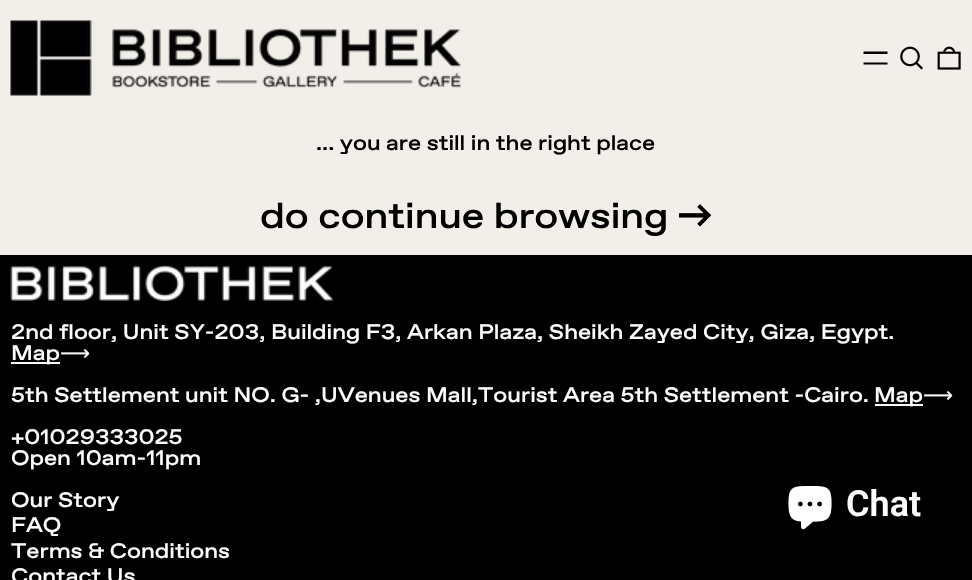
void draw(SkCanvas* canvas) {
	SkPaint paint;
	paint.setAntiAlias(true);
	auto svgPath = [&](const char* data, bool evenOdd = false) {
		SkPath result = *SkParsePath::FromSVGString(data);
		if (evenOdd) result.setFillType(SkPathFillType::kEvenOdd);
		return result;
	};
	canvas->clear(0xfff2eeea);
	canvas->drawImageRect(SkImages::DeferredFromEncodedData(SkData::MakeFromFileName("img1.png")), SkRect::MakeXYWH(10, 20, 451, 76), SkSamplingOptions());
	paint.setColor(0xff000000);
	canvas->drawPath(svgPath("M887.5 62.5V64.5H863.5V62.5ZM887.5 51.5V54H863.5V51.5Z", true), paint);
	canvas->drawImageRect(SkImages::DeferredFromEncodedData(SkData::MakeFromFileName("img2.png")), SkRect::MakeXYWH(900, 46, 23, 24), SkSamplingOptions());
	canvas->drawImageRect(SkImages::DeferredFromEncodedData(SkData::MakeFromFileName("img3.png")), SkRect::MakeXYWH(937, 46, 24, 24), SkSamplingOptions());
	SkFont f1(fontMgr->matchFamilyStyle("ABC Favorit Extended", SkFontStyle(500, SkFontStyle::kNormal_Width, SkFontStyle::kUpright_Slant)), 21);
	f1.setSubpixel(true);
	canvas->drawString("... you are still in the right place", 316, 150, f1, paint);
	SkFont f2(fontMgr->matchFamilyStyle("ABC Favorit Extended", SkFontStyle(500, SkFontStyle::kNormal_Width, SkFontStyle::kUpright_Slant)), 36);
	f2.setSubpixel(true);
	canvas->drawString("do continue browsing →", 260, 228, f2, paint);
	canvas->drawRect(SkRect::MakeXYWH(0, 255, 972, 325), paint);
	canvas->drawImageRect(SkImages::DeferredFromEncodedData(SkData::MakeFromFileName("img4.png")), SkRect::MakeXYWH(10, 265, 323, 36), SkSamplingOptions());
	paint.setColor(0xfffcfcfc);
	canvas->drawString("2nd floor, Unit SY-203, Building F3, Arkan Plaza, Sheikh Zayed City, Giza, Egypt.", 11, 339, f1, paint);
	canvas->drawRect(SkRect::MakeXYWH(11, 362, 49, 2), paint);
	canvas->drawString("Map", 11, 360, f1, paint);
	SkFont f3(fontMgr->matchFamilyStyle("DejaVu Sans", SkFontStyle::Normal()), 21);
	f3.setSubpixel(true);
	canvas->drawString("⟶", 60, 360, f3, paint);
	canvas->drawString("5th Settlement unit NO. G- ,UVenues Mall,Tourist Area 5th Settlement -Cairo.", 11, 402, f1, paint);
	canvas->drawRect(SkRect::MakeXYWH(875, 404, 48, 2), paint);
	canvas->drawString("Map", 874, 402, f1, paint);
	canvas->drawString("⟶", 923, 402, f3, paint);
	canvas->drawString("+01029333025", 11, 444, f1, paint);
	canvas->drawString("Open 10am-11pm", 11, 465, f1, paint);
	canvas->drawString("Our Story", 11, 507, f1, paint);
	canvas->drawString("FAQ", 11, 532, f1, paint);
	canvas->drawString("Terms & Conditions", 11, 558, f1, paint);
	canvas->drawString("Contact Us", 11, 583, f1, paint);
	canvas->drawImageRect(SkImages::DeferredFromEncodedData(SkData::MakeFromFileName("img5.png")), SkRect::MakeXYWH(788, 486, 44, 44), SkSamplingOptions());
	SkFont f4(fontMgr->matchFamilyStyle("Roboto", SkFontStyle(600, SkFontStyle::kNormal_Width, SkFontStyle::kUpright_Slant)), 36);
	f4.setSubpixel(true);
	canvas->drawString("Chat", 846, 516, f4, paint);
}
